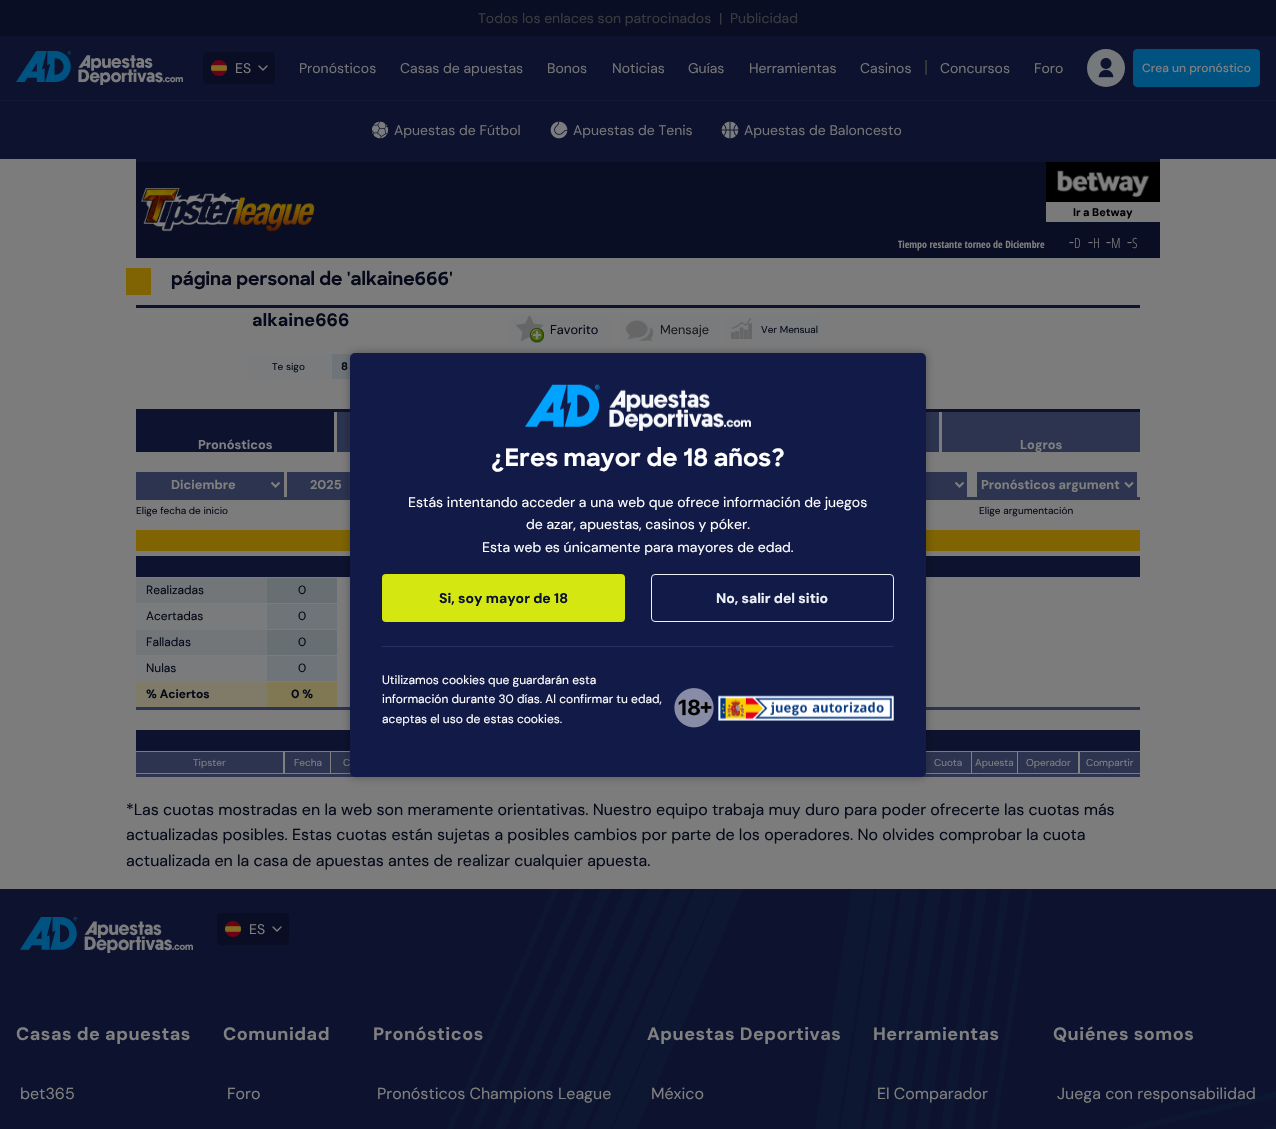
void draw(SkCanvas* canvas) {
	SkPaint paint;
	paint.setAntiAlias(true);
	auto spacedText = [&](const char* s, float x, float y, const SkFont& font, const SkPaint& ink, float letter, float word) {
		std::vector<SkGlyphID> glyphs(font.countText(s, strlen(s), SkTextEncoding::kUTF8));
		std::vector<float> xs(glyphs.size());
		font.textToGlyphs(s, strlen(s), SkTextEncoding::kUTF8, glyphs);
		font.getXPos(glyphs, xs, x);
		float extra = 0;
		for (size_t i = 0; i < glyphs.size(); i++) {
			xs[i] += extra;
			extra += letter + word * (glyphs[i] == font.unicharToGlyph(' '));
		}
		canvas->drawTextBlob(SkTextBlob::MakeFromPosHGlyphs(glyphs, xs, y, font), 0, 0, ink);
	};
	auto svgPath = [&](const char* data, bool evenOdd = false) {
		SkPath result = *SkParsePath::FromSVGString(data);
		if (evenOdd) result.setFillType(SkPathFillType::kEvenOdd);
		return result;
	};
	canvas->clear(0xff7c7c7d);
	paint.setColor(0xff0d132e);
	canvas->drawRect(SkRect::MakeXYWH(0, 36, 1276, 64), paint);
	paint.setColor(0xff090e24);
	canvas->drawRect(SkRect::MakeXYWH(0, 0, 1276, 36), paint);
	SkFont f1(fontMgr->matchFamilyStyle("DM Sans", SkFontStyle::Normal()), 14);
	f1.setSubpixel(true);
	paint.setColor(0xff393c3f);
	canvas->drawString("Todos los enlaces son patrocinados", 478, 23, f1, paint);
	canvas->drawString("|", 719, 23, f1, paint);
	canvas->drawString("Publicidad", 730, 23, f1, paint);
	canvas->drawImageRect(SkImages::DeferredFromEncodedData(SkData::MakeFromFileName("img1.png")), SkRect::MakeXYWH(16, 51, 167, 34), SkSamplingOptions());
	paint.setColor(0xff090e24);
	canvas->drawRoundRect(SkRect::MakeXYWH(203, 52, 72, 32), 4, 4, paint);
	canvas->drawImageRect(SkImages::DeferredFromEncodedData(SkData::MakeFromFileName("img2.png")), SkRect::MakeXYWH(211, 60, 16, 16), SkSamplingOptions());
	paint.setColor(0xff808080);
	canvas->drawString("ES", 235, 73, f1, paint);
	paint.setStroke(true);
	paint.setStrokeWidth(1.3);
	paint.setStrokeCap(SkPaint::kRound_Cap);
	paint.setStrokeJoin(SkPaint::kRound_Join);
	canvas->drawPath(svgPath("M259 66L263 70L267 66"), paint);
	paint.setStroke(false);
	paint.setColor(0xff757577);
	canvas->drawString("Pronósticos", 299, 73, f1, paint);
	canvas->drawString("Casas de apuestas", 400, 73, f1, paint);
	canvas->drawString("Bonos", 547, 73, f1, paint);
	canvas->drawString("Noticias", 612, 73, f1, paint);
	canvas->drawString("Guías", 688, 73, f1, paint);
	canvas->drawString("Herramientas", 749, 73, f1, paint);
	canvas->drawString("Casinos", 860, 73, f1, paint);
	SkFont f2(fontMgr->matchFamilyStyle("DM Sans", SkFontStyle::Normal()), 18);
	f2.setSubpixel(true);
	paint.setColor(0xff393c3f);
	canvas->drawString("|", 924, 73, f2, paint);
	paint.setColor(0xff757577);
	canvas->drawString("Concursos", 940, 73, f1, paint);
	canvas->drawString("Foro", 1034, 73, f1, paint);
	paint.setColor(0xff76797c);
	canvas->drawCircle(1106, 68, 19, paint);
	canvas->drawImageRect(SkImages::DeferredFromEncodedData(SkData::MakeFromFileName("img3.png")), SkRect::MakeXYWH(1098, 58, 16, 20), SkSamplingOptions());
	paint.setColor(0xff005280);
	canvas->drawRoundRect(SkRect::MakeXYWH(1133.5, 49.5, 126, 37), 3.5, 3.5, paint);
	paint.setStroke(true);
	paint.setStrokeWidth(1);
	paint.setStrokeCap(SkPaint::kButt_Cap);
	paint.setStrokeJoin(SkPaint::kMiter_Join);
	canvas->drawRoundRect(SkRect::MakeXYWH(1133.5, 49.5, 126, 37), 3.5, 3.5, paint);
	SkFont f3(fontMgr->matchFamilyStyle("DM Sans", SkFontStyle(500, SkFontStyle::kNormal_Width, SkFontStyle::kUpright_Slant)), 12);
	f3.setSubpixel(true);
	paint.setStroke(false);
	paint.setColor(0xff808080);
	canvas->drawString("Crea un pronóstico", 1142, 72, f3, paint);
	paint.setColor(0xff0d132e);
	canvas->drawRect(SkRect::MakeXYWH(0, 101, 1276, 58), paint);
	paint.setColor(0xff131831);
	canvas->drawRect(SkRect::MakeXYWH(0, 100, 1276, 1), paint);
	canvas->drawImageRect(SkImages::DeferredFromEncodedData(SkData::MakeFromFileName("img4.png")), SkRect::MakeXYWH(371, 121, 18, 18), SkSamplingOptions());
	paint.setColor(0xff757577);
	canvas->drawString("Apuestas de Fútbol", 394, 135, f1, paint);
	canvas->drawImageRect(SkImages::DeferredFromEncodedData(SkData::MakeFromFileName("img5.png")), SkRect::MakeXYWH(550, 121, 18, 18), SkSamplingOptions());
	canvas->drawString("Apuestas de Tenis", 573, 135, f1, paint);
	canvas->drawImageRect(SkImages::DeferredFromEncodedData(SkData::MakeFromFileName("img6.png")), SkRect::MakeXYWH(721, 121, 18, 18), SkSamplingOptions());
	canvas->drawString("Apuestas de Baloncesto", 744, 135, f1, paint);
	paint.setColor(0xff090e24);
	canvas->drawRect(SkRect::MakeXYWH(136, 162, 1024, 96), paint);
	paint.setColor(0xff0d132e);
	canvas->drawRect(SkRect::MakeXYWH(136, 159, 1024, 3), paint);
	canvas->drawImageRect(SkImages::DeferredFromEncodedData(SkData::MakeFromFileName("img7.png")), SkRect::MakeXYWH(141, 188, 174, 44), SkSamplingOptions());
	paint.setColor(0xff7a7a7a);
	canvas->drawRect(SkRect::MakeXYWH(1046, 202, 114, 20), paint);
	paint.setColor(0xff000000);
	canvas->drawRect(SkRect::MakeXYWH(1046, 162, 114, 40), paint);
	canvas->drawImageRect(SkImages::DeferredFromEncodedData(SkData::MakeFromFileName("img8.png")), SkRect::MakeXYWH(1057, 170, 93, 28), SkSamplingOptions());
	SkFont f4(fontMgr->matchFamilyStyle("DM Sans", SkFontStyle::Bold()), 11);
	f4.setSubpixel(true);
	canvas->drawString("Ir a Betway", 1073, 216, f4, paint);
	SkFont f5(fontMgr->matchFamilyStyle("Open Sans Condensed", SkFontStyle::Bold()), 10);
	f5.setSubpixel(true);
	paint.setColor(0xff808080);
	canvas->drawString("Tiempo restante torneo de Diciembre", 898, 248, f5, paint);
	SkFont f6(fontMgr->matchFamilyStyle("Open Sans Condensed", SkFontStyle(300, SkFontStyle::kNormal_Width, SkFontStyle::kUpright_Slant)), 20);
	f6.setSubpixel(true);
	canvas->drawString("-", 1069, 248, f6, paint);
	SkFont f7(fontMgr->matchFamilyStyle("Open Sans Condensed", SkFontStyle(300, SkFontStyle::kNormal_Width, SkFontStyle::kUpright_Slant)), 14);
	f7.setSubpixel(true);
	canvas->drawString("D", 1074, 248, f7, paint);
	canvas->drawString("-", 1088, 248, f6, paint);
	canvas->drawString("H", 1093, 248, f7, paint);
	canvas->drawString("-", 1106, 248, f6, paint);
	canvas->drawString("M", 1111, 248, f7, paint);
	canvas->drawString("-", 1127, 248, f6, paint);
	canvas->drawString("S", 1132, 248, f7, paint);
	paint.setColor(0xff806403);
	canvas->drawRect(SkRect::MakeXYWH(126, 268, 25, 27), paint);
	SkFont f8(fontMgr->matchFamilyStyle("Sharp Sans", SkFontStyle::Bold()), 18);
	f8.setSubpixel(true);
	paint.setColor(0xff060919);
	canvas->drawString("página personal de 'alkaine666'", 171, 285, f8, paint);
	paint.setColor(0xff0d132e);
	canvas->drawRect(SkRect::MakeXYWH(136, 305, 1004, 3), paint);
	SkFont f9(fontMgr->matchFamilyStyle("DM Sans", SkFontStyle::Bold()), 18);
	f9.setSubpixel(true);
	paint.setColor(0xff060919);
	canvas->drawString("alkaine666", 252, 326, f9, paint);
	paint.setColor(0xff797b7c);
	canvas->drawRect(SkRect::MakeXYWH(510, 315, 100, 30), paint);
	canvas->drawImageRect(SkImages::DeferredFromEncodedData(SkData::MakeFromFileName("img9.png")), SkRect::MakeXYWH(515, 315, 29, 28), SkSamplingOptions());
	SkFont f10(fontMgr->matchFamilyStyle("DM Sans", SkFontStyle::Normal()), 12.75);
	f10.setSubpixel(true);
	paint.setColor(0xff060919);
	canvas->drawString("Favorito", 550, 334, f10, paint);
	paint.setColor(0xff797b7c);
	canvas->drawRect(SkRect::MakeXYWH(620, 315, 100, 30), paint);
	canvas->drawImageRect(SkImages::DeferredFromEncodedData(SkData::MakeFromFileName("img10.png")), SkRect::MakeXYWH(626, 320, 27, 21), SkSamplingOptions());
	paint.setColor(0xff1a1a1a);
	canvas->drawString("Mensaje", 660, 334, f10, paint);
	paint.setColor(0xff797b7c);
	canvas->drawRect(SkRect::MakeXYWH(726, 315, 95, 30), paint);
	canvas->drawImageRect(SkImages::DeferredFromEncodedData(SkData::MakeFromFileName("img11.png")), SkRect::MakeXYWH(731, 318, 21, 21), SkSamplingOptions());
	SkFont f11(fontMgr->matchFamilyStyle("DM Sans", SkFontStyle::Normal()), 10);
	f11.setSubpixel(true);
	paint.setColor(0xff060919);
	canvas->drawString("Ver Mensual", 761, 333, f11, paint);
	paint.setColor(0xff797b7c);
	canvas->drawRect(SkRect::MakeXYWH(247, 354, 84, 25), paint);
	paint.setColor(0xff060919);
	canvas->drawString("Te sigo", 272, 370, f11, paint);
	paint.setColor(0xff6e7477);
	canvas->drawRect(SkRect::MakeXYWH(332, 354, 20, 25), paint);
	paint.setColor(0xff060919);
	canvas->drawString("8", 341, 370, f4, paint);
	paint.setColor(0xff0d132e);
	canvas->drawRect(SkRect::MakeXYWH(136, 409, 1004, 3), paint);
	canvas->drawRect(SkRect::MakeXYWH(136, 412, 198, 40), paint);
	SkFont f12(fontMgr->matchFamilyStyle("DM Sans", SkFontStyle::Bold()), 12.75);
	f12.setSubpixel(true);
	paint.setColor(0xff808080);
	canvas->drawString("Pronósticos", 198, 449, f12, paint);
	paint.setColor(0xff2d344f);
	canvas->drawRect(SkRect::MakeXYWH(337, 412, 13, 40), paint);
	canvas->drawRect(SkRect::MakeXYWH(926, 412, 13, 40), paint);
	canvas->drawRect(SkRect::MakeXYWH(942, 412, 198, 40), paint);
	paint.setColor(0xff808080);
	canvas->drawString("Logros", 1020, 449, f12, paint);
	paint.setColor(0xff2d344f);
	canvas->drawRect(SkRect::MakeXYWH(136, 497, 214, 3), paint);
	canvas->drawRect(SkRect::MakeXYWH(136, 472, 148, 25), paint);
	paint.setStroke(true);
	paint.setStrokeWidth(2);
	paint.setColor(0xff808080);
	canvas->drawPath(svgPath("M271.5 482.5L275.5 486.5L279.5 482.5"), paint);
	paint.setStroke(false);
	canvas->drawString("Diciembre", 171, 489, f12, paint);
	paint.setColor(0xff2d344f);
	canvas->drawRect(SkRect::MakeXYWH(287, 472, 63, 25), paint);
	paint.setColor(0xff808080);
	canvas->drawString("2025", 310, 489, f12, paint);
	paint.setColor(0xff060919);
	canvas->drawString("Elige fecha de inicio", 136, 514, f11, paint);
	paint.setColor(0xff2d344f);
	canvas->drawRect(SkRect::MakeXYWH(926, 497, 214, 3), paint);
	canvas->drawRect(SkRect::MakeXYWH(926, 472, 41, 25), paint);
	paint.setStroke(true);
	paint.setColor(0xff808080);
	canvas->drawPath(svgPath("M955.5 482.5L959.5 486.5L963.5 482.5"), paint);
	paint.setStroke(false);
	paint.setColor(0xff2d344f);
	canvas->drawRect(SkRect::MakeXYWH(977, 472, 160, 25), paint);
	paint.setStroke(true);
	paint.setColor(0xff808080);
	canvas->drawPath(svgPath("M1125 482.5L1129 486.5L1133 482.5"), paint);
	paint.setStroke(false);
	canvas->drawString("Pronósticos argument", 981, 489, f12, paint);
	paint.setColor(0xff060919);
	canvas->drawString("Elige argumentación", 979, 514, f11, paint);
	paint.setColor(0xff806403);
	canvas->drawRect(SkRect::MakeXYWH(136, 530, 1004, 21), paint);
	paint.setColor(0xff0d132e);
	canvas->drawRect(SkRect::MakeXYWH(136, 556, 1004, 21), paint);
	paint.setColor(0xff2d344f);
	canvas->drawRect(SkRect::MakeXYWH(136, 707, 214, 3), paint);
	paint.setColor(0xff737678);
	canvas->drawRect(SkRect::MakeXYWH(136, 578, 131, 25), paint);
	SkFont f13(fontMgr->matchFamilyStyle("DM Sans", SkFontStyle::Normal()), 12);
	f13.setSubpixel(true);
	paint.setColor(0xff060919);
	canvas->drawString("Realizadas", 146, 594, f13, paint);
	paint.setColor(0xff676f72);
	canvas->drawRect(SkRect::MakeXYWH(267, 578, 70, 25), paint);
	paint.setColor(0xff060919);
	canvas->drawString("0", 298, 594, f13, paint);
	paint.setColor(0xff797b7c);
	canvas->drawRect(SkRect::MakeXYWH(136, 604, 131, 25), paint);
	paint.setColor(0xff060919);
	canvas->drawString("Acertadas", 146, 620, f13, paint);
	paint.setColor(0xff6e7477);
	canvas->drawRect(SkRect::MakeXYWH(267, 604, 70, 25), paint);
	paint.setColor(0xff060919);
	canvas->drawString("0", 298, 620, f13, paint);
	paint.setColor(0xff737678);
	canvas->drawRect(SkRect::MakeXYWH(136, 630, 131, 25), paint);
	paint.setColor(0xff060919);
	canvas->drawString("Falladas", 146, 646, f13, paint);
	paint.setColor(0xff676f72);
	canvas->drawRect(SkRect::MakeXYWH(267, 630, 70, 25), paint);
	paint.setColor(0xff060919);
	canvas->drawString("0", 298, 646, f13, paint);
	paint.setColor(0xff797b7c);
	canvas->drawRect(SkRect::MakeXYWH(136, 656, 131, 25), paint);
	paint.setColor(0xff060919);
	canvas->drawString("Nulas", 146, 672, f13, paint);
	paint.setColor(0xff6e7477);
	canvas->drawRect(SkRect::MakeXYWH(267, 656, 70, 25), paint);
	paint.setColor(0xff060919);
	canvas->drawString("0", 298, 672, f13, paint);
	paint.setColor(0xff807b69);
	canvas->drawRect(SkRect::MakeXYWH(136, 682, 131, 25), paint);
	SkFont f14(fontMgr->matchFamilyStyle("DM Sans", SkFontStyle::Bold()), 12);
	f14.setSubpixel(true);
	paint.setColor(0xff060919);
	canvas->drawString("% Aciertos", 146, 698, f14, paint);
	paint.setColor(0xff807753);
	canvas->drawRect(SkRect::MakeXYWH(267, 682, 70, 25), paint);
	paint.setColor(0xff060919);
	canvas->drawString("0 %", 291, 698, f14, paint);
	paint.setColor(0xff2d344f);
	canvas->drawRect(SkRect::MakeXYWH(926, 707, 214, 3), paint);
	canvas->drawRect(SkRect::MakeXYWH(136, 774, 1004, 3), paint);
	paint.setColor(0xff0d132e);
	canvas->drawRect(SkRect::MakeXYWH(136, 730, 1004, 21), paint);
	paint.setColor(0xff2d344f);
	canvas->drawRect(SkRect::MakeXYWH(136, 752, 1004, 21), paint);
	paint.setColor(0xff808080);
	canvas->drawRect(SkRect::MakeXYWH(283, 752, 2, 21), paint);
	canvas->drawString("Tipster", 193, 766, f11, paint);
	canvas->drawRect(SkRect::MakeXYWH(330, 752, 1, 21), paint);
	canvas->drawString("Fecha", 294, 766, f11, paint);
	canvas->drawString("C", 343, 766, f11, paint);
	canvas->drawRect(SkRect::MakeXYWH(971, 752, 1, 21), paint);
	canvas->drawString("Cuota", 934, 766, f11, paint);
	canvas->drawRect(SkRect::MakeXYWH(1017, 752, 1, 21), paint);
	canvas->drawString("Apuesta", 975, 766, f11, paint);
	canvas->drawRect(SkRect::MakeXYWH(1078, 752, 2, 21), paint);
	canvas->drawString("Operador", 1026, 766, f11, paint);
	canvas->drawString("Compartir", 1086, 766, f11, paint);
	SkFont f15(fontMgr->matchFamilyStyle("DM Sans", SkFontStyle::Normal()), 16);
	f15.setSubpixel(true);
	paint.setColor(0xff060919);
	canvas->drawString("*Las cuotas mostradas en la web son meramente orientativas. Nuestro equipo trabaja muy duro para poder ofrecerte las cuotas más", 126, 815, f15, paint);
	canvas->drawString("actualizadas posibles. Estas cuotas están sujetas a posibles cambios por parte de los operadores. No olvides comprobar la cuota", 126, 840, f15, paint);
	canvas->drawString("actualizada en la casa de apuestas antes de realizar cualquier apuesta.", 126, 866, f15, paint);
	paint.setColor(0x4d000000);
	paint.setMaskFilter(SkMaskFilter::MakeBlur(kNormal_SkBlurStyle, 5));
	canvas->drawRoundRect(SkRect::MakeXYWH(350, 353, 576, 424), 5, 5, paint);
	paint.setMaskFilter(nullptr);
	paint.setColor(0xff121b47);
	canvas->drawRoundRect(SkRect::MakeXYWH(350, 353, 576, 424), 5, 5, paint);
	canvas->drawImageRect(SkImages::DeferredFromEncodedData(SkData::MakeFromFileName("img12.png")), SkRect::MakeXYWH(525, 384, 226, 47), SkSamplingOptions());
	SkFont f16(fontMgr->matchFamilyStyle("Sharp Sans", SkFontStyle::Bold()), 24);
	f16.setSubpixel(true);
	paint.setColor(0xffffffff);
	canvas->drawString("¿Eres mayor de 18 años?", 491, 466, f16, paint);
	canvas->drawString("Estás intentando acceder a una web que ofrece información de juegos", 408, 507, f1, paint);
	canvas->drawString("de azar, apuestas, casinos y póker.", 526, 529, f1, paint);
	canvas->drawString("Esta web es únicamente para mayores de edad.", 482, 552, f1, paint);
	paint.setColor(0xffd5e710);
	canvas->drawRoundRect(SkRect::MakeXYWH(382, 574, 243, 48), 4, 4, paint);
	SkFont f17(fontMgr->matchFamilyStyle("DM Sans", SkFontStyle::Bold()), 14);
	f17.setSubpixel(true);
	paint.setColor(0xff0b1132);
	canvas->drawString("Si, soy mayor de 18", 439, 603, f17, paint);
	paint.setStroke(true);
	paint.setStrokeWidth(1);
	paint.setColor(0xffecf1f8);
	canvas->drawRoundRect(SkRect::MakeXYWH(651.5, 574.5, 242, 47), 3.5, 3.5, paint);
	paint.setStroke(false);
	canvas->drawString("No, salir del sitio", 716, 603, f17, paint);
	paint.setColor(0xff263062);
	canvas->drawRect(SkRect::MakeXYWH(382, 646, 512, 1), paint);
	paint.setColor(0xffffffff);
	canvas->drawString("Utilizamos cookies que guardarán esta", 382, 684, f13, paint);
	canvas->drawString("información durante 30 días. Al confirmar tu edad,", 382, 703, f13, paint);
	canvas->drawString("aceptas el uso de estas cookies.", 382, 723, f13, paint);
	canvas->drawImageRect(SkImages::DeferredFromEncodedData(SkData::MakeFromFileName("img13.png")), SkRect::MakeXYWH(674, 688, 40, 40), SkSamplingOptions());
	canvas->drawImageRect(SkImages::DeferredFromEncodedData(SkData::MakeFromFileName("img14.png")), SkRect::MakeXYWH(718, 695, 176, 26), SkSamplingOptions());
	paint.setColor(0xff0d132e);
	canvas->drawRect(SkRect::MakeXYWH(0, 889, 1276, 240), paint);
	canvas->drawImageRect(SkImages::DeferredFromEncodedData(SkData::MakeFromFileName("img15.png")), SkRect::MakeXYWH(447, 889, 829, 240), SkSamplingOptions());
	canvas->drawImageRect(SkImages::DeferredFromEncodedData(SkData::MakeFromFileName("img16.png")), SkRect::MakeXYWH(20, 917, 173, 36), SkSamplingOptions());
	paint.setColor(0xff090e24);
	canvas->drawRoundRect(SkRect::MakeXYWH(217, 913, 72, 32), 4, 4, paint);
	canvas->drawImageRect(SkImages::DeferredFromEncodedData(SkData::MakeFromFileName("img2.png")), SkRect::MakeXYWH(225, 921, 16, 16), SkSamplingOptions());
	paint.setColor(0xff808080);
	canvas->drawString("ES", 249, 934, f1, paint);
	paint.setStroke(true);
	paint.setStrokeWidth(1.3);
	paint.setStrokeCap(SkPaint::kRound_Cap);
	paint.setStrokeJoin(SkPaint::kRound_Join);
	canvas->drawPath(svgPath("M273 927L277 931L281 927"), paint);
	paint.setStroke(false);
	spacedText("Casas de apuestas", 16, 1040, f9, paint, 0.5, 0);
	canvas->drawString("bet365", 20, 1099, f15, paint);
	spacedText("Comunidad", 223, 1040, f9, paint, 0.5, 0);
	canvas->drawString("Foro", 227, 1099, f15, paint);
	spacedText("Pronósticos", 373, 1040, f9, paint, 0.5, 0);
	canvas->drawString("Pronósticos Champions League", 377, 1099, f15, paint);
	spacedText("Apuestas Deportivas", 647, 1040, f9, paint, 0.5, 0);
	canvas->drawString("México", 651, 1099, f15, paint);
	spacedText("Herramientas", 873, 1040, f9, paint, 0.5, 0);
	canvas->drawString("El Comparador", 877, 1099, f15, paint);
	spacedText("Quiénes somos", 1053, 1040, f9, paint, 0.5, 0);
	canvas->drawString("Juega con responsabilidad", 1057, 1099, f15, paint);
}
